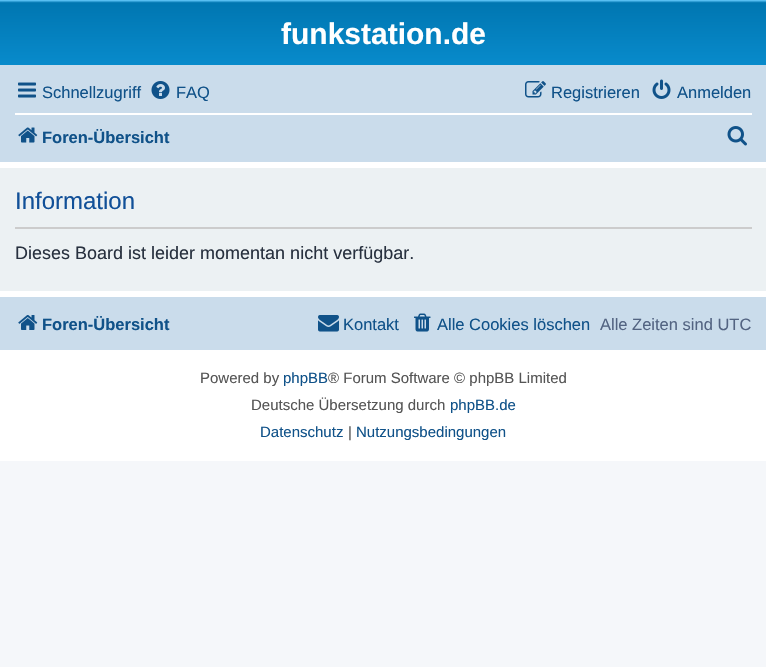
void draw(SkCanvas* canvas) {
	SkPaint paint;
	paint.setAntiAlias(true);
	canvas->clear(0xfff5f7fa);
	paint.setColor(0xffffffff);
	canvas->drawRect(SkRect::MakeXYWH(0, 162, 766, 299), paint);
	{
		const SkColor colors[] = {0xff6aceff, 0xff0076b1, 0xff12a3eb};
		const float stops[] = {0, 0.02, 1};
		const SkPoint ends[] = {{383, 0}, {383, 138}};
		paint.setShader(SkGradientShader::MakeLinear(ends, colors, stops, 3, SkTileMode::kClamp));
		paint.setAlpha(255);
	}
	canvas->drawRect(SkRect::MakeXYWH(0, 0, 766, 65), paint);
	SkFont f1(fontMgr->matchFamilyStyle("Liberation Sans", SkFontStyle::Bold()), 30);
	f1.setSubpixel(true);
	paint.setShader(nullptr);
	paint.setColor(0xffffffff);
	canvas->drawString("funkstation.de", 281, 44, f1, paint);
	paint.setColor(0xffcadceb);
	canvas->drawRect(SkRect::MakeXYWH(0, 65, 766, 97), paint);
	canvas->drawImageRect(SkImages::DeferredFromEncodedData(SkData::MakeFromFileName("img1.png")), SkRect::MakeXYWH(18, 82, 18, 16), SkSamplingOptions());
	SkFont f2(fontMgr->matchFamilyStyle("Liberation Sans", SkFontStyle::Normal()), 16.5);
	f2.setSubpixel(true);
	paint.setColor(0xff105289);
	canvas->drawString("Schnellzugriff", 42, 98, f2, paint);
	canvas->drawImageRect(SkImages::DeferredFromEncodedData(SkData::MakeFromFileName("img2.png")), SkRect::MakeXYWH(151, 81, 19, 18), SkSamplingOptions());
	canvas->drawString("FAQ", 176, 98, f2, paint);
	canvas->drawImageRect(SkImages::DeferredFromEncodedData(SkData::MakeFromFileName("img3.png")), SkRect::MakeXYWH(525, 81, 21, 17), SkSamplingOptions());
	canvas->drawString("Registrieren", 551, 98, f2, paint);
	canvas->drawImageRect(SkImages::DeferredFromEncodedData(SkData::MakeFromFileName("img4.png")), SkRect::MakeXYWH(652, 79, 19, 20), SkSamplingOptions());
	canvas->drawString("Anmelden", 677, 98, f2, paint);
	paint.setColor(0xffffffff);
	canvas->drawRect(SkRect::MakeXYWH(15, 113, 737, 2), paint);
	canvas->drawImageRect(SkImages::DeferredFromEncodedData(SkData::MakeFromFileName("img5.png")), SkRect::MakeXYWH(18, 127, 20, 16), SkSamplingOptions());
	SkFont f3(fontMgr->matchFamilyStyle("Liberation Sans", SkFontStyle::Bold()), 16.5);
	f3.setSubpixel(true);
	paint.setColor(0xff105289);
	canvas->drawString("Foren-Übersicht", 42, 143, f3, paint);
	canvas->drawImageRect(SkImages::DeferredFromEncodedData(SkData::MakeFromFileName("img6.png")), SkRect::MakeXYWH(727, 126, 20, 20), SkSamplingOptions());
	paint.setColor(0xffecf1f3);
	canvas->drawRect(SkRect::MakeXYWH(0, 168, 766, 123), paint);
	paint.setColor(0xffcccccc);
	canvas->drawRect(SkRect::MakeXYWH(15, 227, 737, 2), paint);
	SkFont f4(fontMgr->matchFamilyStyle("Liberation Sans", SkFontStyle::Normal()), 24);
	f4.setSubpixel(true);
	paint.setColor(0xff115098);
	canvas->drawString("Information", 15, 209, f4, paint);
	SkFont f5(fontMgr->matchFamilyStyle("Liberation Sans", SkFontStyle::Normal()), 18);
	f5.setSubpixel(true);
	paint.setColor(0xff28313f);
	canvas->drawString("Dieses Board ist leider momentan nicht verfügbar.", 15, 259, f5, paint);
	paint.setColor(0xffcadceb);
	canvas->drawRect(SkRect::MakeXYWH(0, 297, 766, 53), paint);
	canvas->drawImageRect(SkImages::DeferredFromEncodedData(SkData::MakeFromFileName("img7.png")), SkRect::MakeXYWH(18, 315, 20, 15), SkSamplingOptions());
	paint.setColor(0xff105289);
	canvas->drawString("Foren-Übersicht", 42, 330, f3, paint);
	canvas->drawImageRect(SkImages::DeferredFromEncodedData(SkData::MakeFromFileName("img8.png")), SkRect::MakeXYWH(318, 315, 21, 17), SkSamplingOptions());
	canvas->drawString("Kontakt", 343, 330, f2, paint);
	canvas->drawImageRect(SkImages::DeferredFromEncodedData(SkData::MakeFromFileName("img9.png")), SkRect::MakeXYWH(414, 313, 17, 19), SkSamplingOptions());
	canvas->drawString("Alle Cookies löschen", 437, 330, f2, paint);
	paint.setColor(0xff536482);
	canvas->drawString("Alle Zeiten sind UTC", 600, 330, f2, paint);
	SkFont f6(fontMgr->matchFamilyStyle("Liberation Sans", SkFontStyle::Normal()), 15);
	f6.setSubpixel(true);
	paint.setColor(0xff555555);
	canvas->drawString("Powered by", 200, 383, f6, paint);
	paint.setColor(0xff105289);
	canvas->drawString("phpBB", 283, 383, f6, paint);
	paint.setColor(0xff555555);
	canvas->drawString("® Forum Software © phpBB Limited", 328, 383, f6, paint);
	canvas->drawString("Deutsche Übersetzung durch", 251, 410, f6, paint);
	paint.setColor(0xff105289);
	canvas->drawString("phpBB.de", 450, 410, f6, paint);
	canvas->drawString("Datenschutz", 260, 437, f6, paint);
	paint.setColor(0xff555555);
	canvas->drawString("|", 348, 437, f6, paint);
	paint.setColor(0xff105289);
	canvas->drawString("Nutzungsbedingungen", 356, 437, f6, paint);
}
